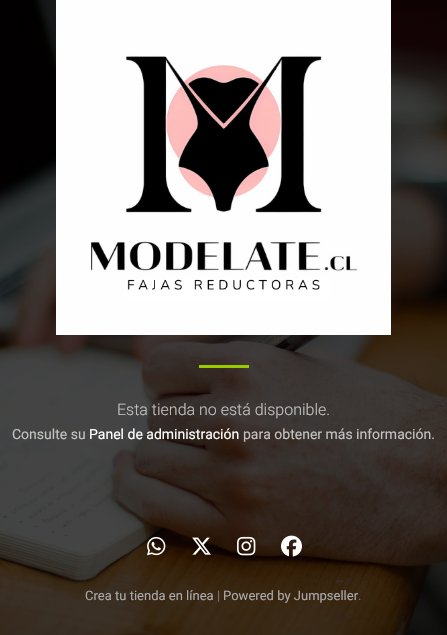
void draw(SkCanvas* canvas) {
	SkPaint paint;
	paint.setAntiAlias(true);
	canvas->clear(0xffffffff);
	canvas->drawImageRect(SkImages::DeferredFromEncodedData(SkData::MakeFromFileName("img1.png")), SkRect::MakeXYWH(0, 0, 447, 635), SkSamplingOptions());
	canvas->drawImageRect(SkImages::DeferredFromEncodedData(SkData::MakeFromFileName("img2.png")), SkRect::MakeXYWH(56, 0, 335, 335), SkSamplingOptions());
	paint.setColor(0xff99cc00);
	canvas->drawRect(SkRect::MakeXYWH(199, 365, 50, 3), paint);
	SkFont f1(fontMgr->matchFamilyStyle("Roboto", SkFontStyle(300, SkFontStyle::kNormal_Width, SkFontStyle::kUpright_Slant)), 16);
	f1.setSubpixel(true);
	paint.setColor(0xffc4c3c2);
	canvas->drawString("Esta tienda no está disponible.", 117, 415, f1, paint);
	SkFont f2(fontMgr->matchFamilyStyle("Roboto", SkFontStyle::Normal()), 14);
	f2.setSubpixel(true);
	canvas->drawString("Consulte su", 12, 439, f2, paint);
	paint.setColor(0xffffffff);
	canvas->drawString("Panel de administración", 89, 439, f2, paint);
	paint.setColor(0xffc4c3c2);
	canvas->drawString("para obtener más información.", 243, 439, f2, paint);
	canvas->drawImageRect(SkImages::DeferredFromEncodedData(SkData::MakeFromFileName("img3.png")), SkRect::MakeXYWH(147, 536, 19, 20), SkSamplingOptions());
	canvas->drawImageRect(SkImages::DeferredFromEncodedData(SkData::MakeFromFileName("img4.png")), SkRect::MakeXYWH(192, 537, 19, 18), SkSamplingOptions());
	canvas->drawImageRect(SkImages::DeferredFromEncodedData(SkData::MakeFromFileName("img5.png")), SkRect::MakeXYWH(237, 536, 19, 20), SkSamplingOptions());
	canvas->drawImageRect(SkImages::DeferredFromEncodedData(SkData::MakeFromFileName("img6.png")), SkRect::MakeXYWH(281, 535, 21, 22), SkSamplingOptions());
	SkFont f3(fontMgr->matchFamilyStyle("Roboto", SkFontStyle::Normal()), 13);
	f3.setSubpixel(true);
	paint.setColor(0xffaaaaaa);
	canvas->drawString("Crea tu tienda en línea", 85, 600, f3, paint);
	paint.setColor(0xff777777);
	canvas->drawString("|", 217, 600, f3, paint);
	paint.setColor(0xffaaaaaa);
	canvas->drawString("Powered by Jumpseller", 223, 600, f3, paint);
	paint.setColor(0xff777777);
	canvas->drawString(".", 358, 600, f3, paint);
}
